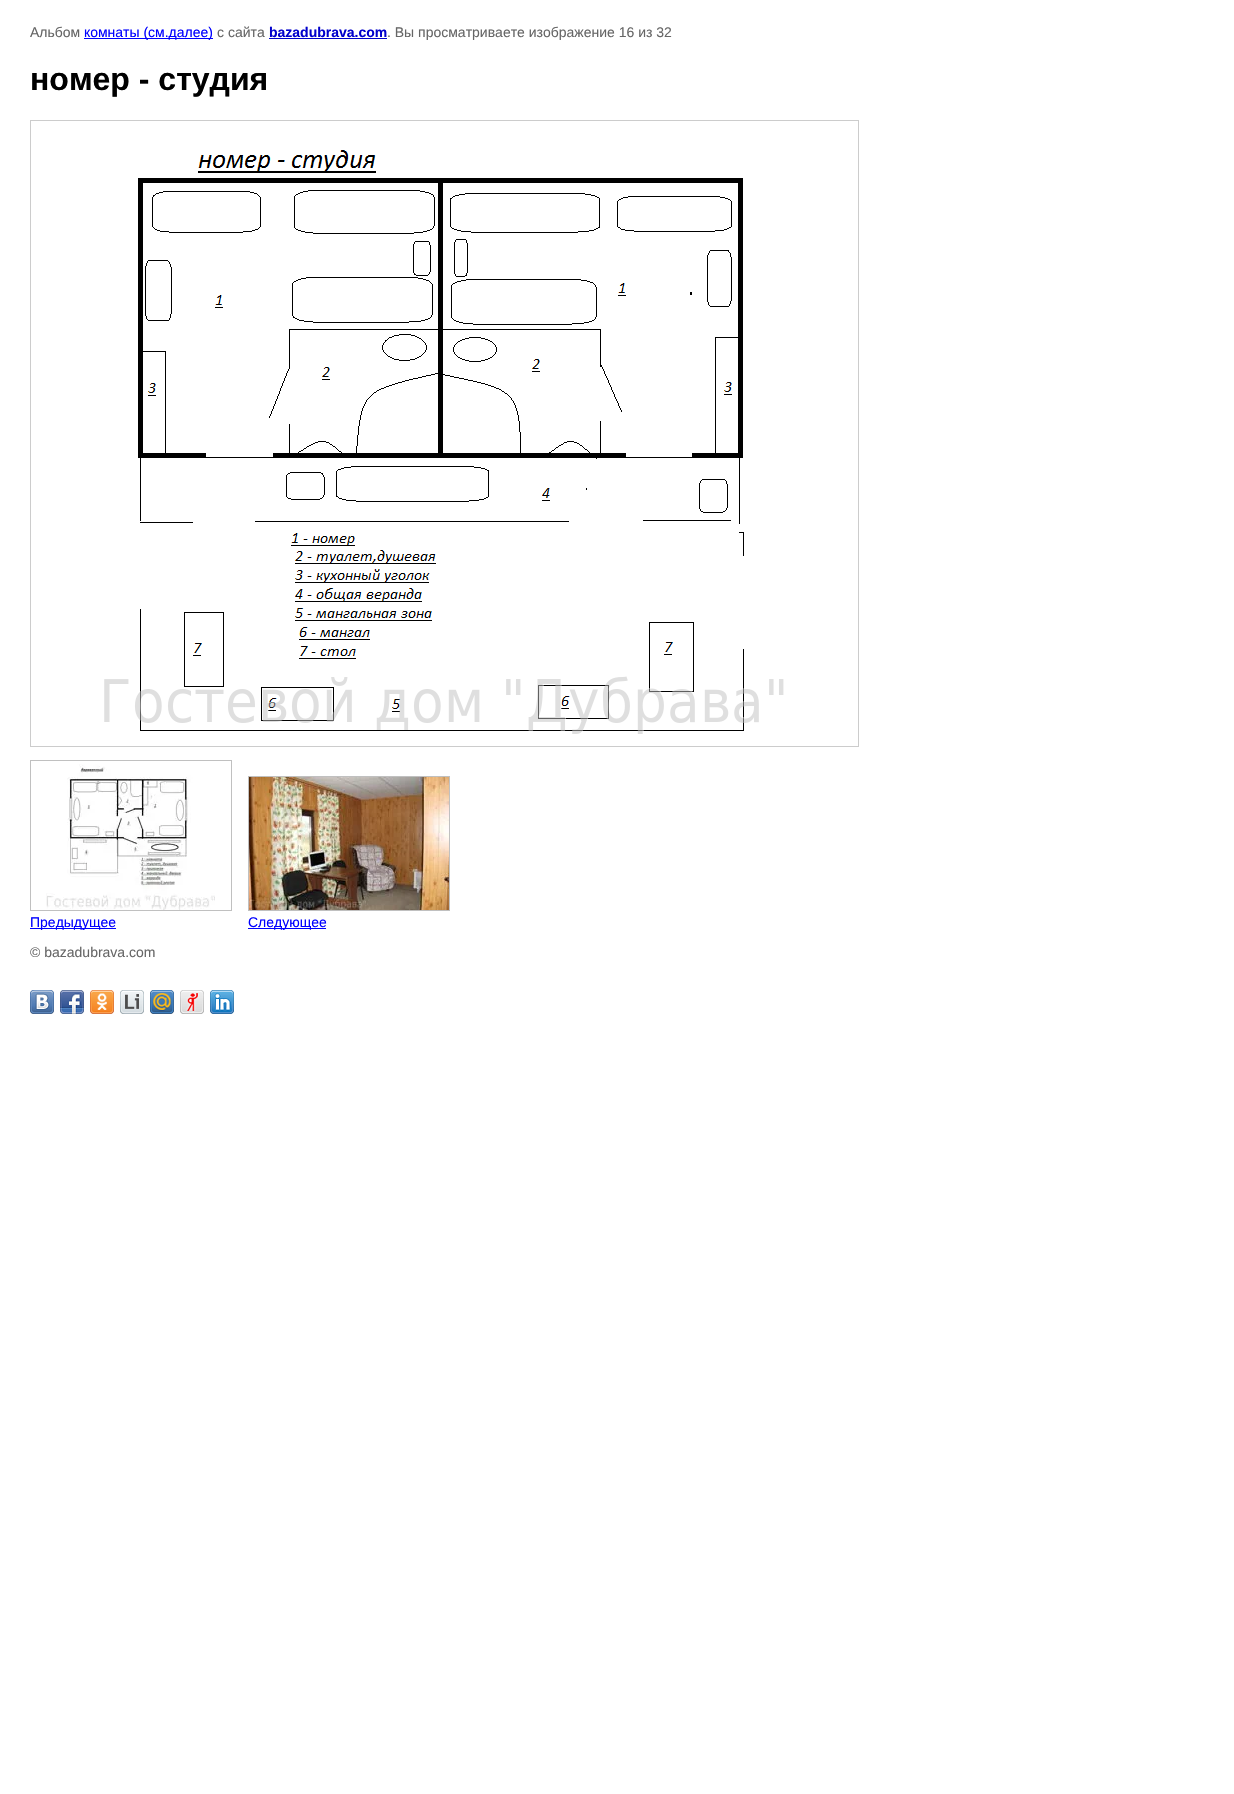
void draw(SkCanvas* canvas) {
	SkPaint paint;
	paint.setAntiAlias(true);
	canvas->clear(0xffffffff);
	SkFont f1(fontMgr->matchFamilyStyle("Liberation Sans", SkFontStyle::Normal()), 14);
	f1.setSubpixel(true);
	paint.setColor(0xff666666);
	canvas->drawString("Альбом", 30, 37, f1, paint);
	paint.setColor(0xff0000ff);
	canvas->drawRect(SkRect::MakeXYWH(84, 38, 129, 1), paint);
	canvas->drawString("комнаты (см.далее)", 84, 37, f1, paint);
	paint.setColor(0xff666666);
	canvas->drawString("с сайта", 217, 37, f1, paint);
	SkFont f2(fontMgr->matchFamilyStyle("Liberation Sans", SkFontStyle::Bold()), 14);
	f2.setSubpixel(true);
	paint.setColor(0xff0000cc);
	canvas->drawString("bazadubrava.com", 269, 37, f2, paint);
	canvas->drawRect(SkRect::MakeXYWH(269, 38, 118, 1), paint);
	paint.setColor(0xff666666);
	canvas->drawString(". Вы просматриваете изображение 16 из 32", 387, 37, f1, paint);
	SkFont f3(fontMgr->matchFamilyStyle("Liberation Sans", SkFontStyle::Bold()), 32);
	f3.setSubpixel(true);
	paint.setColor(0xff000000);
	canvas->drawString("номер - студия", 30, 90, f3, paint);
	paint.setStroke(true);
	paint.setStrokeWidth(1);
	paint.setColor(0xffcccccc);
	canvas->drawRect(SkRect::MakeXYWH(30.5, 120.5, 828, 626), paint);
	canvas->drawImageRect(SkImages::DeferredFromEncodedData(SkData::MakeFromFileName("img1.png")), SkRect::MakeXYWH(104, 150, 680, 584), SkSamplingOptions());
	paint.setColor(0xffc0c0c0);
	canvas->drawRect(SkRect::MakeXYWH(30.5, 760.5, 201, 150), paint);
	canvas->drawImageRect(SkImages::DeferredFromEncodedData(SkData::MakeFromFileName("img2.png")), SkRect::MakeXYWH(46, 764, 169, 146), SkSamplingOptions());
	paint.setStroke(false);
	paint.setColor(0xff0000ff);
	canvas->drawRect(SkRect::MakeXYWH(30, 928, 86, 1), paint);
	canvas->drawString("Предыдущее", 30, 927, f1, paint);
	paint.setStroke(true);
	paint.setColor(0xffc0c0c0);
	canvas->drawRect(SkRect::MakeXYWH(248.5, 776.5, 201, 134), paint);
	canvas->drawImageRect(SkImages::DeferredFromEncodedData(SkData::MakeFromFileName("img3.png")), SkRect::MakeXYWH(249, 777, 200, 133), SkSamplingOptions());
	paint.setStroke(false);
	paint.setColor(0xff0000ff);
	canvas->drawRect(SkRect::MakeXYWH(248, 928, 78, 1), paint);
	canvas->drawString("Следующее", 248, 927, f1, paint);
	paint.setColor(0xff666666);
	canvas->drawString("© bazadubrava.com", 30, 957, f1, paint);
	canvas->drawImageRect(SkImages::DeferredFromEncodedData(SkData::MakeFromFileName("img4.png")), SkRect::MakeXYWH(30, 990, 24, 24), SkSamplingOptions());
	canvas->drawImageRect(SkImages::DeferredFromEncodedData(SkData::MakeFromFileName("img5.png")), SkRect::MakeXYWH(60, 990, 24, 24), SkSamplingOptions());
	canvas->drawImageRect(SkImages::DeferredFromEncodedData(SkData::MakeFromFileName("img6.png")), SkRect::MakeXYWH(90, 990, 24, 24), SkSamplingOptions());
	canvas->drawImageRect(SkImages::DeferredFromEncodedData(SkData::MakeFromFileName("img7.png")), SkRect::MakeXYWH(120, 990, 24, 24), SkSamplingOptions());
	canvas->drawImageRect(SkImages::DeferredFromEncodedData(SkData::MakeFromFileName("img8.png")), SkRect::MakeXYWH(150, 990, 24, 24), SkSamplingOptions());
	canvas->drawImageRect(SkImages::DeferredFromEncodedData(SkData::MakeFromFileName("img9.png")), SkRect::MakeXYWH(180, 990, 24, 24), SkSamplingOptions());
	canvas->drawImageRect(SkImages::DeferredFromEncodedData(SkData::MakeFromFileName("img10.png")), SkRect::MakeXYWH(210, 990, 24, 24), SkSamplingOptions());
}
